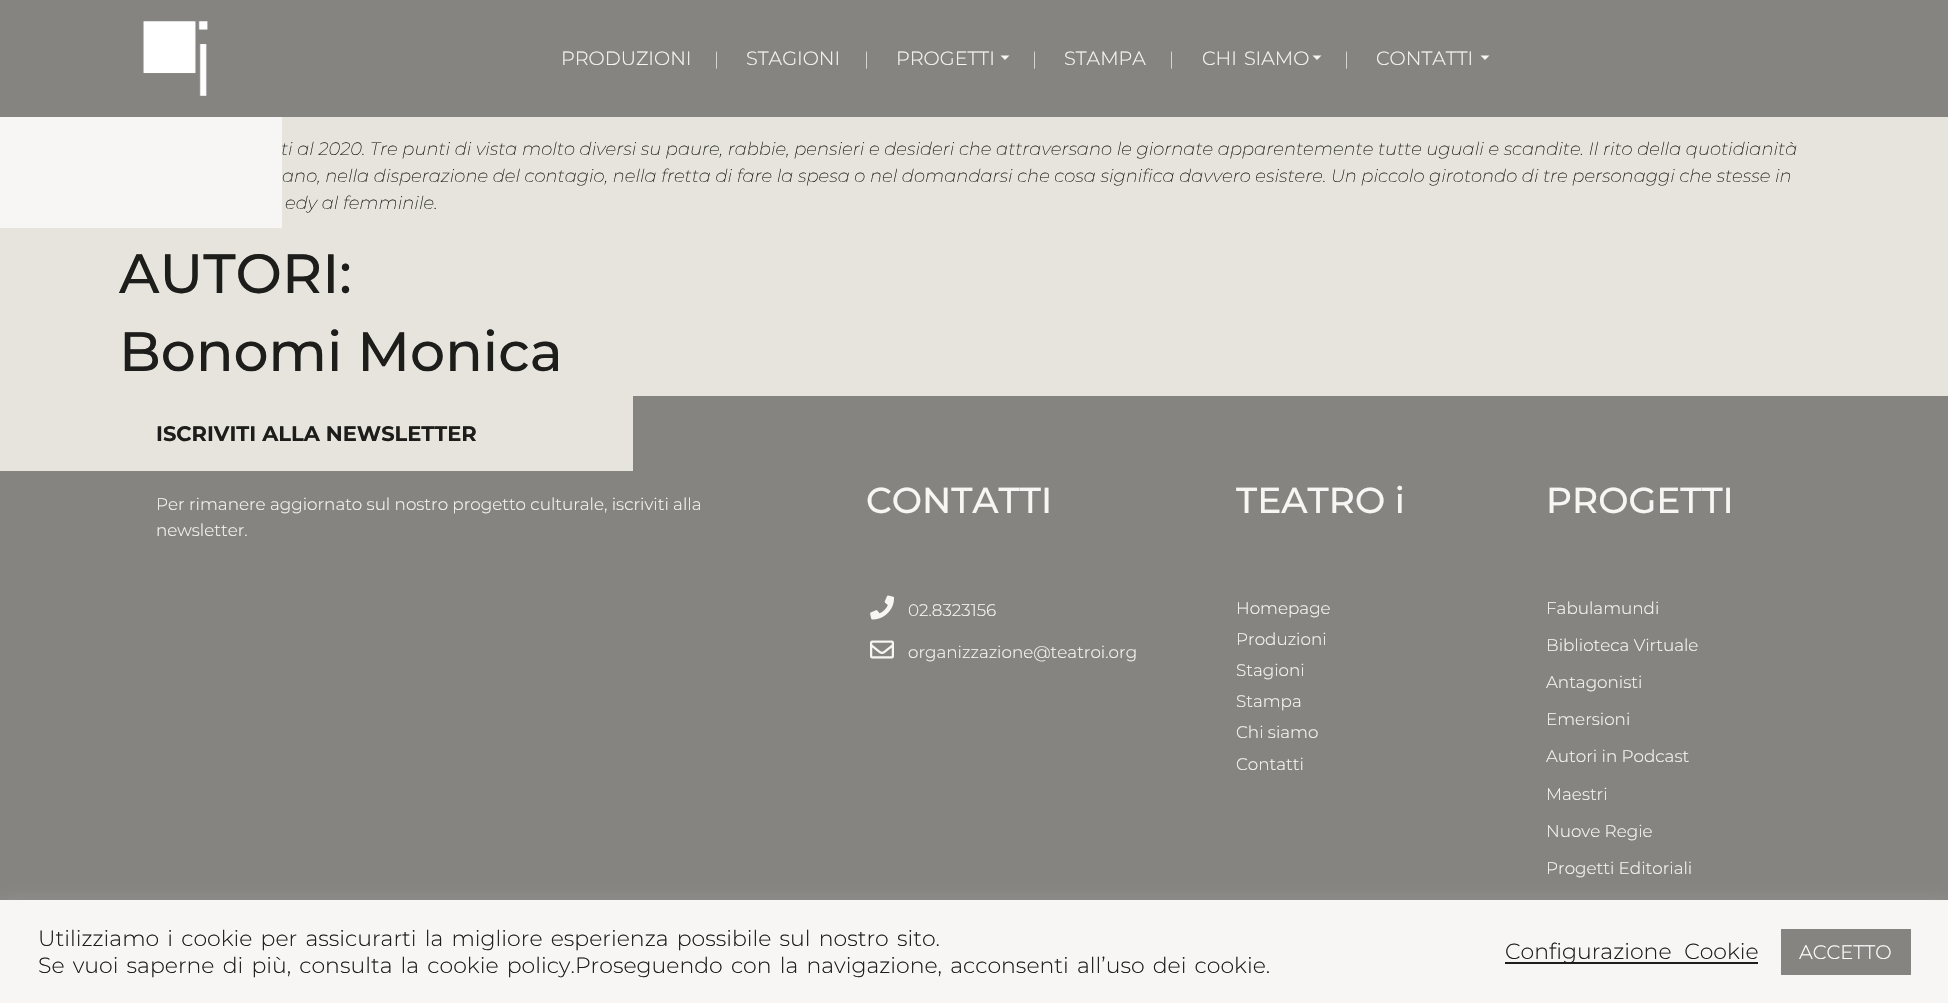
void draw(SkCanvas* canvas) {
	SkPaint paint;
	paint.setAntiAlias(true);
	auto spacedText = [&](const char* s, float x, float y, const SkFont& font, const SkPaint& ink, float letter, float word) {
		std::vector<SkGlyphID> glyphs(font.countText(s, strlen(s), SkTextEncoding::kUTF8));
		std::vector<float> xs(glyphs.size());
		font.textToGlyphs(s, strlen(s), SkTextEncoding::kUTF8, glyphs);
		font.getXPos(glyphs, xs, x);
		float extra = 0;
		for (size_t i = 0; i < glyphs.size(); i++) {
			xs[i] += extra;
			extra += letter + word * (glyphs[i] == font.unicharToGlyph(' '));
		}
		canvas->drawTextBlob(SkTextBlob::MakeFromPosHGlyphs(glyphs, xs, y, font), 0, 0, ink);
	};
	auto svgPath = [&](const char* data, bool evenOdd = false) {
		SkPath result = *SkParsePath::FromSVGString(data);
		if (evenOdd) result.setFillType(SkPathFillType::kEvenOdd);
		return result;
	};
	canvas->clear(0xffe6e4dc);
	paint.setColor(0xff858481);
	canvas->drawRect(SkRect::MakeXYWH(0, 0, 1948, 117), paint);
	canvas->drawImageRect(SkImages::DeferredFromEncodedData(SkData::MakeFromFileName("img1.png")), SkRect::MakeXYWH(143, 21, 65, 75), SkSamplingOptions());
	SkFont f1(fontMgr->matchFamilyStyle("Montserrat", SkFontStyle(300, SkFontStyle::kNormal_Width, SkFontStyle::kUpright_Slant)), 19.25);
	f1.setSubpixel(true);
	paint.setColor(0xfff7f6f4);
	canvas->drawString("PRODUZIONI", 561, 65, f1, paint);
	SkFont f2(fontMgr->matchFamilyStyle("Montserrat", SkFontStyle(200, SkFontStyle::kNormal_Width, SkFontStyle::kUpright_Slant)), 18);
	f2.setSubpixel(true);
	canvas->drawString("|", 714, 65, f2, paint);
	canvas->drawString("STAGIONI", 746, 65, f1, paint);
	canvas->drawString("|", 864, 65, f2, paint);
	canvas->drawString("PROGETTI", 896, 65, f1, paint);
	canvas->drawPath(svgPath("M1000.5 55.5H1009.5L1005 60Z"), paint);
	canvas->drawString("|", 1032, 65, f2, paint);
	canvas->drawString("STAMPA", 1064, 65, f1, paint);
	canvas->drawString("|", 1169, 65, f2, paint);
	spacedText("CHI SIAMO", 1202, 65, f1, paint, 0, 2);
	canvas->drawPath(svgPath("M1312.5 55.5H1321.5L1317 60Z"), paint);
	canvas->drawString("|", 1344, 65, f2, paint);
	canvas->drawString("CONTATTI", 1376, 65, f1, paint);
	canvas->drawPath(svgPath("M1480.5 55.5H1489.5L1485 60Z"), paint);
	canvas->drawRect(SkRect::MakeXYWH(0, 117, 282, 111), paint);
	SkFont f3(fontMgr->matchFamilyStyle("Montserrat", SkFontStyle(100, SkFontStyle::kNormal_Width, SkFontStyle::kItalic_Slant)), 18);
	f3.setSubpixel(true);
	paint.setColor(0xff1d1d1b);
	canvas->drawString("ti al 2020. Tre punti di vista molto diversi su paure, rabbie, pensieri e desideri che attraversano le giornate apparentemente tutte uguali e scandite. Il rito della quotidianità", 281, 155, f3, paint);
	canvas->drawString("ano, nella disperazione del contagio, nella fretta di fare la spesa o nel domandarsi che cosa significa davvero esistere. Un piccolo girotondo di tre personaggi che stesse in", 282, 182, f3, paint);
	canvas->drawString("edy al femminile.", 285, 209, f3, paint);
	SkFont f4(fontMgr->matchFamilyStyle("Montserrat", SkFontStyle(500, SkFontStyle::kNormal_Width, SkFontStyle::kUpright_Slant)), 55.25);
	f4.setSubpixel(true);
	canvas->drawString("AUTORI:", 119, 293, f4, paint);
	canvas->drawString("Bonomi Monica", 119, 371, f4, paint);
	paint.setColor(0xff858481);
	canvas->drawRect(SkRect::MakeXYWH(0, 396, 1948, 504), paint);
	paint.setColor(0xffe6e4dc);
	canvas->drawRect(SkRect::MakeXYWH(0, 396, 633, 75), paint);
	SkFont f5(fontMgr->matchFamilyStyle("Montserrat", SkFontStyle::Bold()), 21);
	f5.setSubpixel(true);
	paint.setColor(0xff1d1d1b);
	canvas->drawString("ISCRIVITI ALLA NEWSLETTER", 156, 441, f5, paint);
	SkFont f6(fontMgr->matchFamilyStyle("Montserrat", SkFontStyle(300, SkFontStyle::kNormal_Width, SkFontStyle::kUpright_Slant)), 16.8);
	f6.setSubpixel(true);
	paint.setColor(0xfff7f6f4);
	canvas->drawString("Per rimanere aggiornato sul nostro progetto culturale, iscriviti alla", 156, 510, f6, paint);
	canvas->drawString("newsletter.", 156, 536, f6, paint);
	SkFont f7(fontMgr->matchFamilyStyle("Montserrat", SkFontStyle(500, SkFontStyle::kNormal_Width, SkFontStyle::kUpright_Slant)), 36);
	f7.setSubpixel(true);
	canvas->drawString("CONTATTI", 866, 513, f7, paint);
	canvas->drawImageRect(SkImages::DeferredFromEncodedData(SkData::MakeFromFileName("img2.png")), SkRect::MakeXYWH(870, 595, 24, 25), SkSamplingOptions());
	canvas->drawString("02.8323156", 908, 616, f6, paint);
	canvas->drawImageRect(SkImages::DeferredFromEncodedData(SkData::MakeFromFileName("img3.png")), SkRect::MakeXYWH(870, 640, 24, 19), SkSamplingOptions());
	canvas->drawString("organizzazione@teatroi.org", 908, 658, f6, paint);
	canvas->drawString("TEATRO i", 1236, 513, f7, paint);
	canvas->drawString("Homepage", 1236, 614, f6, paint);
	canvas->drawString("Produzioni", 1236, 645, f6, paint);
	canvas->drawString("Stagioni", 1236, 676, f6, paint);
	canvas->drawString("Stampa", 1236, 707, f6, paint);
	canvas->drawString("Chi siamo", 1236, 738, f6, paint);
	canvas->drawString("Contatti", 1236, 770, f6, paint);
	canvas->drawString("PROGETTI", 1546, 513, f7, paint);
	canvas->drawString("Fabulamundi", 1546, 614, f6, paint);
	canvas->drawString("Biblioteca Virtuale", 1546, 651, f6, paint);
	canvas->drawString("Antagonisti", 1546, 688, f6, paint);
	canvas->drawString("Emersioni", 1546, 725, f6, paint);
	canvas->drawString("Autori in Podcast", 1546, 762, f6, paint);
	canvas->drawString("Maestri", 1546, 800, f6, paint);
	canvas->drawString("Nuove Regie", 1546, 837, f6, paint);
	canvas->drawString("Progetti Editoriali", 1546, 874, f6, paint);
	paint.setColor(0x4dacabab);
	paint.setMaskFilter(SkMaskFilter::MakeBlur(kNormal_SkBlurStyle, 7.5));
	canvas->drawRect(SkRect::MakeXYWH(0, 899, 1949, 103), paint);
	paint.setMaskFilter(nullptr);
	paint.setColor(0xfff7f6f4);
	canvas->drawRect(SkRect::MakeXYWH(0, 900, 1948, 103), paint);
	SkFont f8(fontMgr->matchFamilyStyle("Montserrat", SkFontStyle(300, SkFontStyle::kNormal_Width, SkFontStyle::kUpright_Slant)), 22);
	f8.setSubpixel(true);
	paint.setColor(0xff1d1d1b);
	spacedText("Utilizziamo i cookie per assicurarti la migliore esperienza possibile sul nostro sito.", 38, 946, f8, paint, 0, 2.5);
	spacedText("Se vuoi saperne di più, consulta la cookie policy.Proseguendo con la navigazione, acconsenti all’uso dei cookie.", 38, 973, f8, paint, 0, 2.5);
	canvas->drawRect(SkRect::MakeXYWH(1505, 962, 253, 2), paint);
	spacedText("Configurazione Cookie", 1505, 959, f8, paint, 0, 7);
	paint.setColor(0xff858481);
	canvas->drawRect(SkRect::MakeXYWH(1781, 929, 130, 46), paint);
	SkFont f9(fontMgr->matchFamilyStyle("Montserrat", SkFontStyle(300, SkFontStyle::kNormal_Width, SkFontStyle::kUpright_Slant)), 19.5);
	f9.setSubpixel(true);
	paint.setColor(0xffffffff);
	canvas->drawString("ACCETTO", 1799, 959, f9, paint);
}
